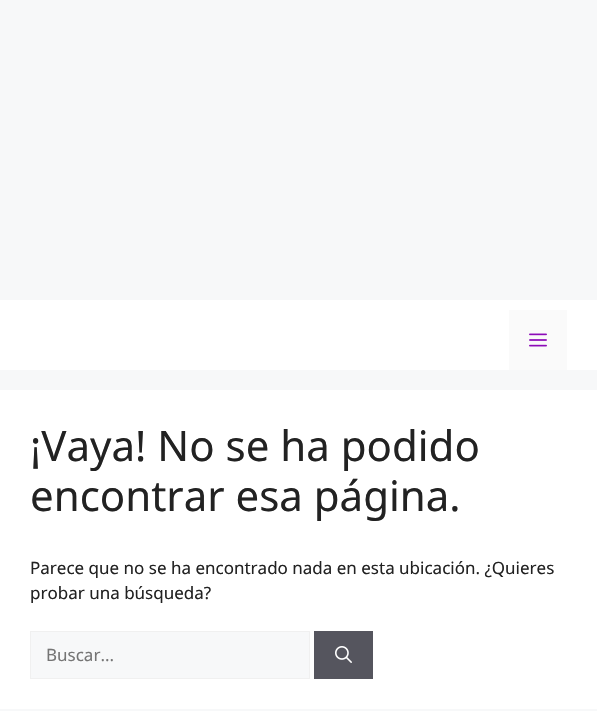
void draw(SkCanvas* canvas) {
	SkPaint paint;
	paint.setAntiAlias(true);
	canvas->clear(0xfff7f8f9);
	paint.setColor(0xffffffff);
	canvas->drawRect(SkRect::MakeXYWH(0, 300, 597, 70), paint);
	paint.setColor(0xfffafafa);
	canvas->drawRect(SkRect::MakeXYWH(509, 310, 58, 60), paint);
	canvas->drawImageRect(SkImages::DeferredFromEncodedData(SkData::MakeFromFileName("img1.png")), SkRect::MakeXYWH(529, 333, 18, 14), SkSamplingOptions());
	paint.setColor(0xffffffff);
	canvas->drawRect(SkRect::MakeXYWH(0, 390, 597, 319), paint);
	SkFont f1(fontMgr->matchFamilyStyle("Noto Sans", SkFontStyle::Normal()), 42);
	f1.setSubpixel(true);
	paint.setColor(0xff222222);
	canvas->drawString("¡Vaya! No se ha podido", 30, 461, f1, paint);
	canvas->drawString("encontrar esa página.", 30, 511, f1, paint);
	SkFont f2(fontMgr->matchFamilyStyle("Noto Sans", SkFontStyle::Normal()), 17);
	f2.setSubpixel(true);
	canvas->drawString("Parece que no se ha encontrado nada en esta ubicación. ¿Quieres", 30, 574, f2, paint);
	canvas->drawString("probar una búsqueda?", 30, 599, f2, paint);
	paint.setColor(0xfff7f8f9);
	canvas->drawRect(SkRect::MakeXYWH(30.5, 631.5, 279, 47), paint);
	paint.setStroke(true);
	paint.setStrokeWidth(1);
	paint.setColor(0xfff0f0f0);
	canvas->drawRect(SkRect::MakeXYWH(30.5, 631.5, 279, 47), paint);
	paint.setStroke(false);
	paint.setColor(0xff757575);
	canvas->drawString("Buscar...", 46, 661, f2, paint);
	paint.setColor(0xff55555e);
	canvas->drawRect(SkRect::MakeXYWH(314, 631, 59, 48), paint);
	canvas->drawImageRect(SkImages::DeferredFromEncodedData(SkData::MakeFromFileName("img2.png")), SkRect::MakeXYWH(335, 646, 17, 17), SkSamplingOptions());
}
